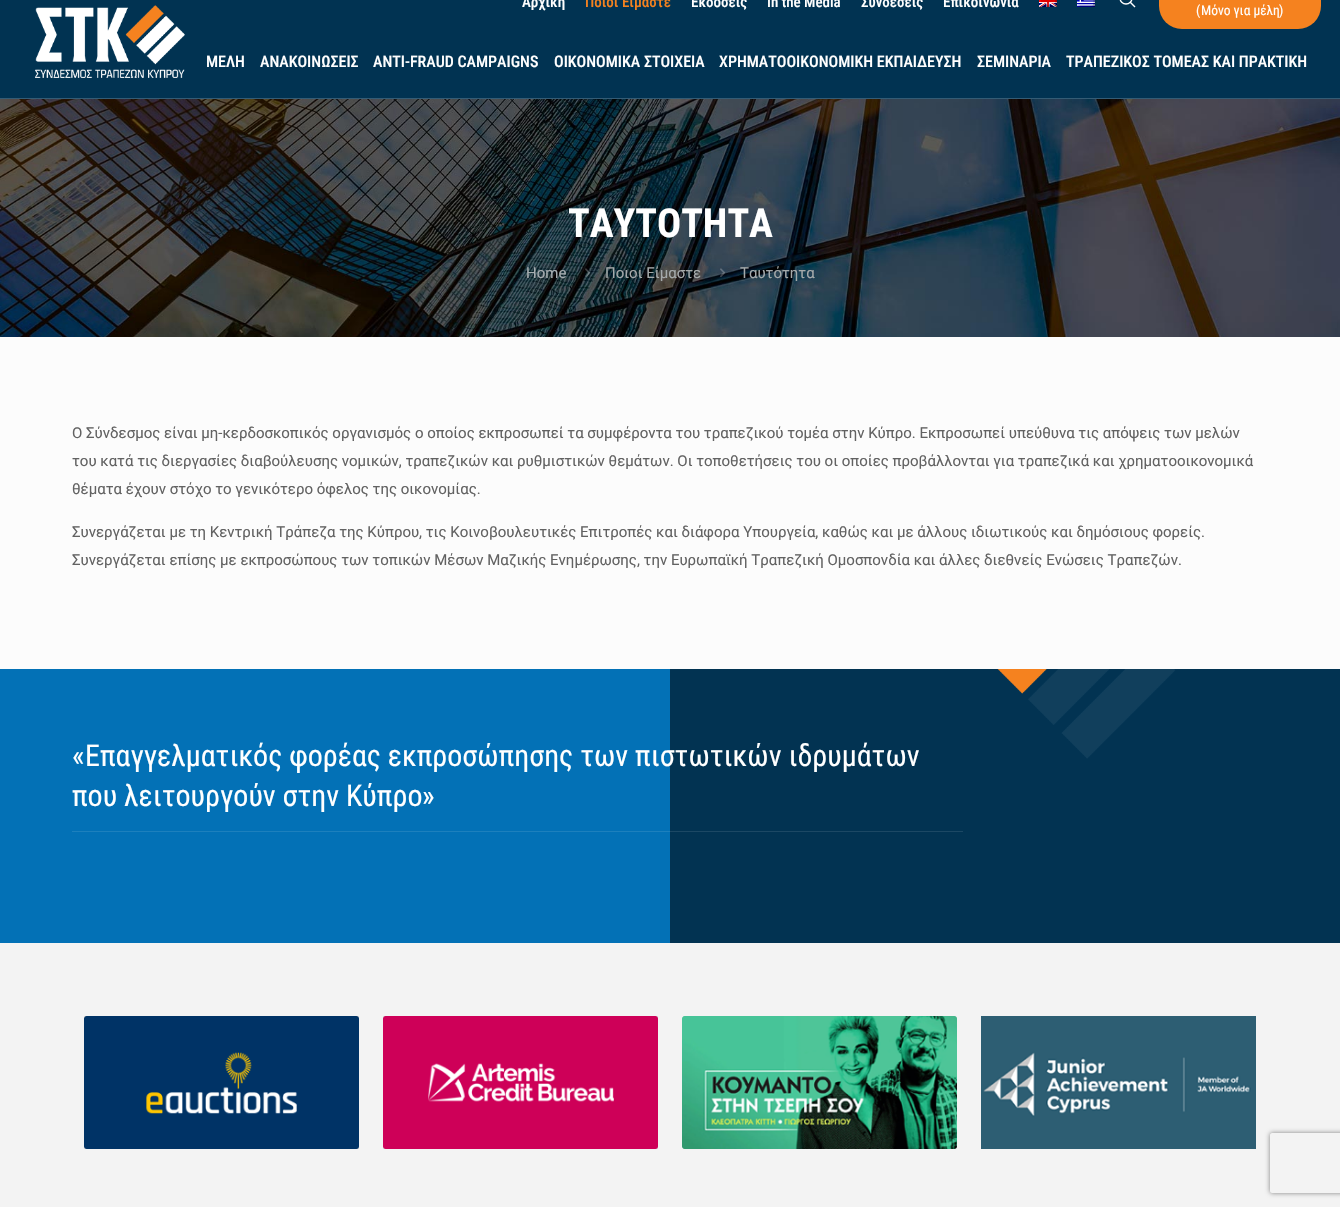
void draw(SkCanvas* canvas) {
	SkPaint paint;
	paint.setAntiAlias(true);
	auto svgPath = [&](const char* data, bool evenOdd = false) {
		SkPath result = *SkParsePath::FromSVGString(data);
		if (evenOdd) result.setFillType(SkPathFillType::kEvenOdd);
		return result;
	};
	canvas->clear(0xfffcfcfc);
	paint.setColor(0xff013352);
	canvas->drawRect(SkRect::MakeXYWH(0, 0, 1340, 98), paint);
	paint.setColor(0xff345c75);
	canvas->drawRect(SkRect::MakeXYWH(0, 98, 1340, 1), paint);
	SkFont f1(fontMgr->matchFamilyStyle("Roboto Condensed", SkFontStyle(500, SkFontStyle::kNormal_Width, SkFontStyle::kUpright_Slant)), 15);
	f1.setSubpixel(true);
	paint.setColor(0xffffffff);
	canvas->drawString("Αρχική", 522, 7, f1, paint);
	paint.setColor(0xfff5821f);
	canvas->drawString("Ποιοι Είμαστε", 585, 7, f1, paint);
	paint.setColor(0xffffffff);
	canvas->drawString("Εκδόσεις", 691, 7, f1, paint);
	canvas->drawString("In the Media", 767, 7, f1, paint);
	canvas->drawString("Συνδέσεις", 861, 7, f1, paint);
	canvas->drawString("Επικοινωνία", 943, 7, f1, paint);
	canvas->drawImageRect(SkImages::DeferredFromEncodedData(SkData::MakeFromFileName("img1.png")), SkRect::MakeXYWH(1039, 0, 18, 7), SkSamplingOptions());
	canvas->drawImageRect(SkImages::DeferredFromEncodedData(SkData::MakeFromFileName("img2.png")), SkRect::MakeXYWH(1077, 0, 18, 7), SkSamplingOptions());
	paint.setStroke(true);
	paint.setStrokeWidth(1.4);
	canvas->drawCircle(1126, -2, 6, paint);
	canvas->drawPath(svgPath("M1130 2L1135 7"), paint);
	paint.setStroke(false);
	paint.setColor(0xfff5821f);
	canvas->drawRoundRect(SkRect::MakeXYWH(1159, -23, 162, 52), 23, 23, paint);
	SkFont f2(fontMgr->matchFamilyStyle("Roboto Condensed", SkFontStyle::Normal()), 13.5);
	f2.setSubpixel(true);
	paint.setColor(0xffffffff);
	canvas->drawString("(", 1196, 15, f2, paint);
	SkFont f3(fontMgr->matchFamilyStyle("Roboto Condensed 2", SkFontStyle::Normal()), 13.5);
	f3.setSubpixel(true);
	canvas->drawString("Μόνο για μέλη", 1201, 15, f3, paint);
	canvas->drawString(")", 1279, 15, f2, paint);
	canvas->drawImageRect(SkImages::DeferredFromEncodedData(SkData::MakeFromFileName("img3.png")), SkRect::MakeXYWH(35, 5, 150, 73), SkSamplingOptions());
	SkFont f4(fontMgr->matchFamilyStyle("Roboto Condensed", SkFontStyle(500, SkFontStyle::kNormal_Width, SkFontStyle::kUpright_Slant)), 16);
	f4.setSubpixel(true);
	canvas->drawString("ΜΕΛΗ", 206, 67, f4, paint);
	canvas->drawString("ΑΝΑΚΟΙΝΩΣΕΙΣ", 260, 67, f4, paint);
	canvas->drawString("ANTI-FRAUD CAMPAIGNS", 373, 67, f4, paint);
	canvas->drawString("ΟΙΚΟΝΟΜΙΚΑ ΣΤΟΙΧΕΙΑ", 554, 67, f4, paint);
	canvas->drawString("ΧΡΗΜΑΤΟΟΙΚΟΝΟΜΙΚΗ ΕΚΠΑΙΔΕΥΣΗ", 719, 67, f4, paint);
	canvas->drawString("ΣΕΜΙΝΑΡΙΑ", 977, 67, f4, paint);
	canvas->drawString("ΤΡΑΠΕΖΙΚΟΣ ΤΟΜΕΑΣ ΚΑΙ ΠΡΑΚΤΙΚΗ", 1066, 67, f4, paint);
	canvas->drawImageRect(SkImages::DeferredFromEncodedData(SkData::MakeFromFileName("img4.png")), SkRect::MakeXYWH(0, 99, 1340, 238), SkSamplingOptions());
	SkFont f5(fontMgr->matchFamilyStyle("Roboto Condensed", SkFontStyle::Bold()), 40);
	f5.setSubpixel(true);
	canvas->drawString("ΤΑΥΤΟΤΗΤΑ", 568, 237, f5, paint);
	SkFont f6(fontMgr->matchFamilyStyle("Roboto", SkFontStyle::Normal()), 15);
	f6.setSubpixel(true);
	paint.setColor(0xffa7aeb1);
	canvas->drawString("Home", 526, 278, f6, paint);
	canvas->drawImageRect(SkImages::DeferredFromEncodedData(SkData::MakeFromFileName("img5.png")), SkRect::MakeXYWH(585, 268, 5, 9), SkSamplingOptions());
	paint.setColor(0xffa5aaab);
	canvas->drawString("Ποιοι Είμαστε", 605, 278, f6, paint);
	canvas->drawImageRect(SkImages::DeferredFromEncodedData(SkData::MakeFromFileName("img6.png")), SkRect::MakeXYWH(720, 268, 5, 9), SkSamplingOptions());
	canvas->drawString("Ταυτότητα", 740, 278, f6, paint);
	paint.setColor(0xff626262);
	canvas->drawString("Ο Σύνδεσμος είναι μη-κερδοσκοπικός οργανισμός ο οποίος εκπροσωπεί τα συμφέροντα του τραπεζικού τομέα στην Κύπρο. Εκπροσωπεί υπεύθυνα τις απόψεις των μελών", 72, 438, f6, paint);
	canvas->drawString("του κατά τις διεργασίες διαβούλευσης νομικών, τραπεζικών και ρυθμιστικών θεμάτων. Οι τοποθετήσεις του οι οποίες προβάλλονται για τραπεζικά και χρηματοοικονομικά", 72, 466, f6, paint);
	canvas->drawString("θέματα έχουν στόχο το γενικότερο όφελος της οικονομίας.", 72, 494, f6, paint);
	canvas->drawString("Συνεργάζεται με τη Κεντρική Τράπεζα της Κύπρου, τις Κοινοβουλευτικές Επιτροπές και διάφορα Υπουργεία, καθώς και με άλλους ιδιωτικούς και δημόσιους φορείς.", 72, 537, f6, paint);
	canvas->drawString("Συνεργάζεται επίσης με εκπροσώπους των τοπικών Μέσων Μαζικής Ενημέρωσης, την Ευρωπαϊκή Τραπεζική Ομοσπονδία και άλλες διεθνείς Ενώσεις Τραπεζών.", 72, 565, f6, paint);
	paint.setColor(0xff0371b6);
	canvas->drawRect(SkRect::MakeXYWH(0, 669, 1340, 274), paint);
	canvas->drawImageRect(SkImages::DeferredFromEncodedData(SkData::MakeFromFileName("img7.png")), SkRect::MakeXYWH(670, 669, 670, 274), SkSamplingOptions());
	SkFont f7(fontMgr->matchFamilyStyle("Roboto Condensed", SkFontStyle::Normal()), 30);
	f7.setSubpixel(true);
	paint.setColor(0xffffffff);
	canvas->drawString("«", 72, 766, f7, paint);
	SkFont f8(fontMgr->matchFamilyStyle("Roboto Condensed 2", SkFontStyle::Normal()), 30);
	f8.setSubpixel(true);
	canvas->drawString("Επαγγελματικός φορέας εκπροσώπησης των πιστωτικών ιδρυμάτων", 85, 766, f8, paint);
	canvas->drawString("που λειτουργούν στην Κύπρο", 72, 806, f8, paint);
	canvas->drawString("»", 422, 806, f7, paint);
	paint.setColor(0x1affffff);
	canvas->drawRect(SkRect::MakeXYWH(72, 831, 891, 1), paint);
	paint.setColor(0xfff3f3f3);
	canvas->drawRect(SkRect::MakeXYWH(0, 943, 1340, 264), paint);
	canvas->drawImageRect(SkImages::DeferredFromEncodedData(SkData::MakeFromFileName("img8.png")), SkRect::MakeXYWH(84, 1016, 275, 133), SkSamplingOptions());
	canvas->drawImageRect(SkImages::DeferredFromEncodedData(SkData::MakeFromFileName("img9.png")), SkRect::MakeXYWH(383, 1016, 275, 133), SkSamplingOptions());
	canvas->drawImageRect(SkImages::DeferredFromEncodedData(SkData::MakeFromFileName("img10.png")), SkRect::MakeXYWH(682, 1016, 275, 133), SkSamplingOptions());
	canvas->drawImageRect(SkImages::DeferredFromEncodedData(SkData::MakeFromFileName("img11.png")), SkRect::MakeXYWH(981, 1016, 275, 133), SkSamplingOptions());
	canvas->save();
	canvas->clipPath(svgPath("M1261 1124H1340V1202H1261ZM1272 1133H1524C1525 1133 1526 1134 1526 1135V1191C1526 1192 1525 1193 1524 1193H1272C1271 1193 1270 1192 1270 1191V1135C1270 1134 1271 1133 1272 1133Z", true), true);
	paint.setColor(0xff808080);
	paint.setMaskFilter(SkMaskFilter::MakeBlur(kNormal_SkBlurStyle, 2.5));
	canvas->drawRoundRect(SkRect::MakeXYWH(1270, 1133, 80, 60), 2, 2, paint);
	paint.setMaskFilter(nullptr);
	canvas->restore();
}
